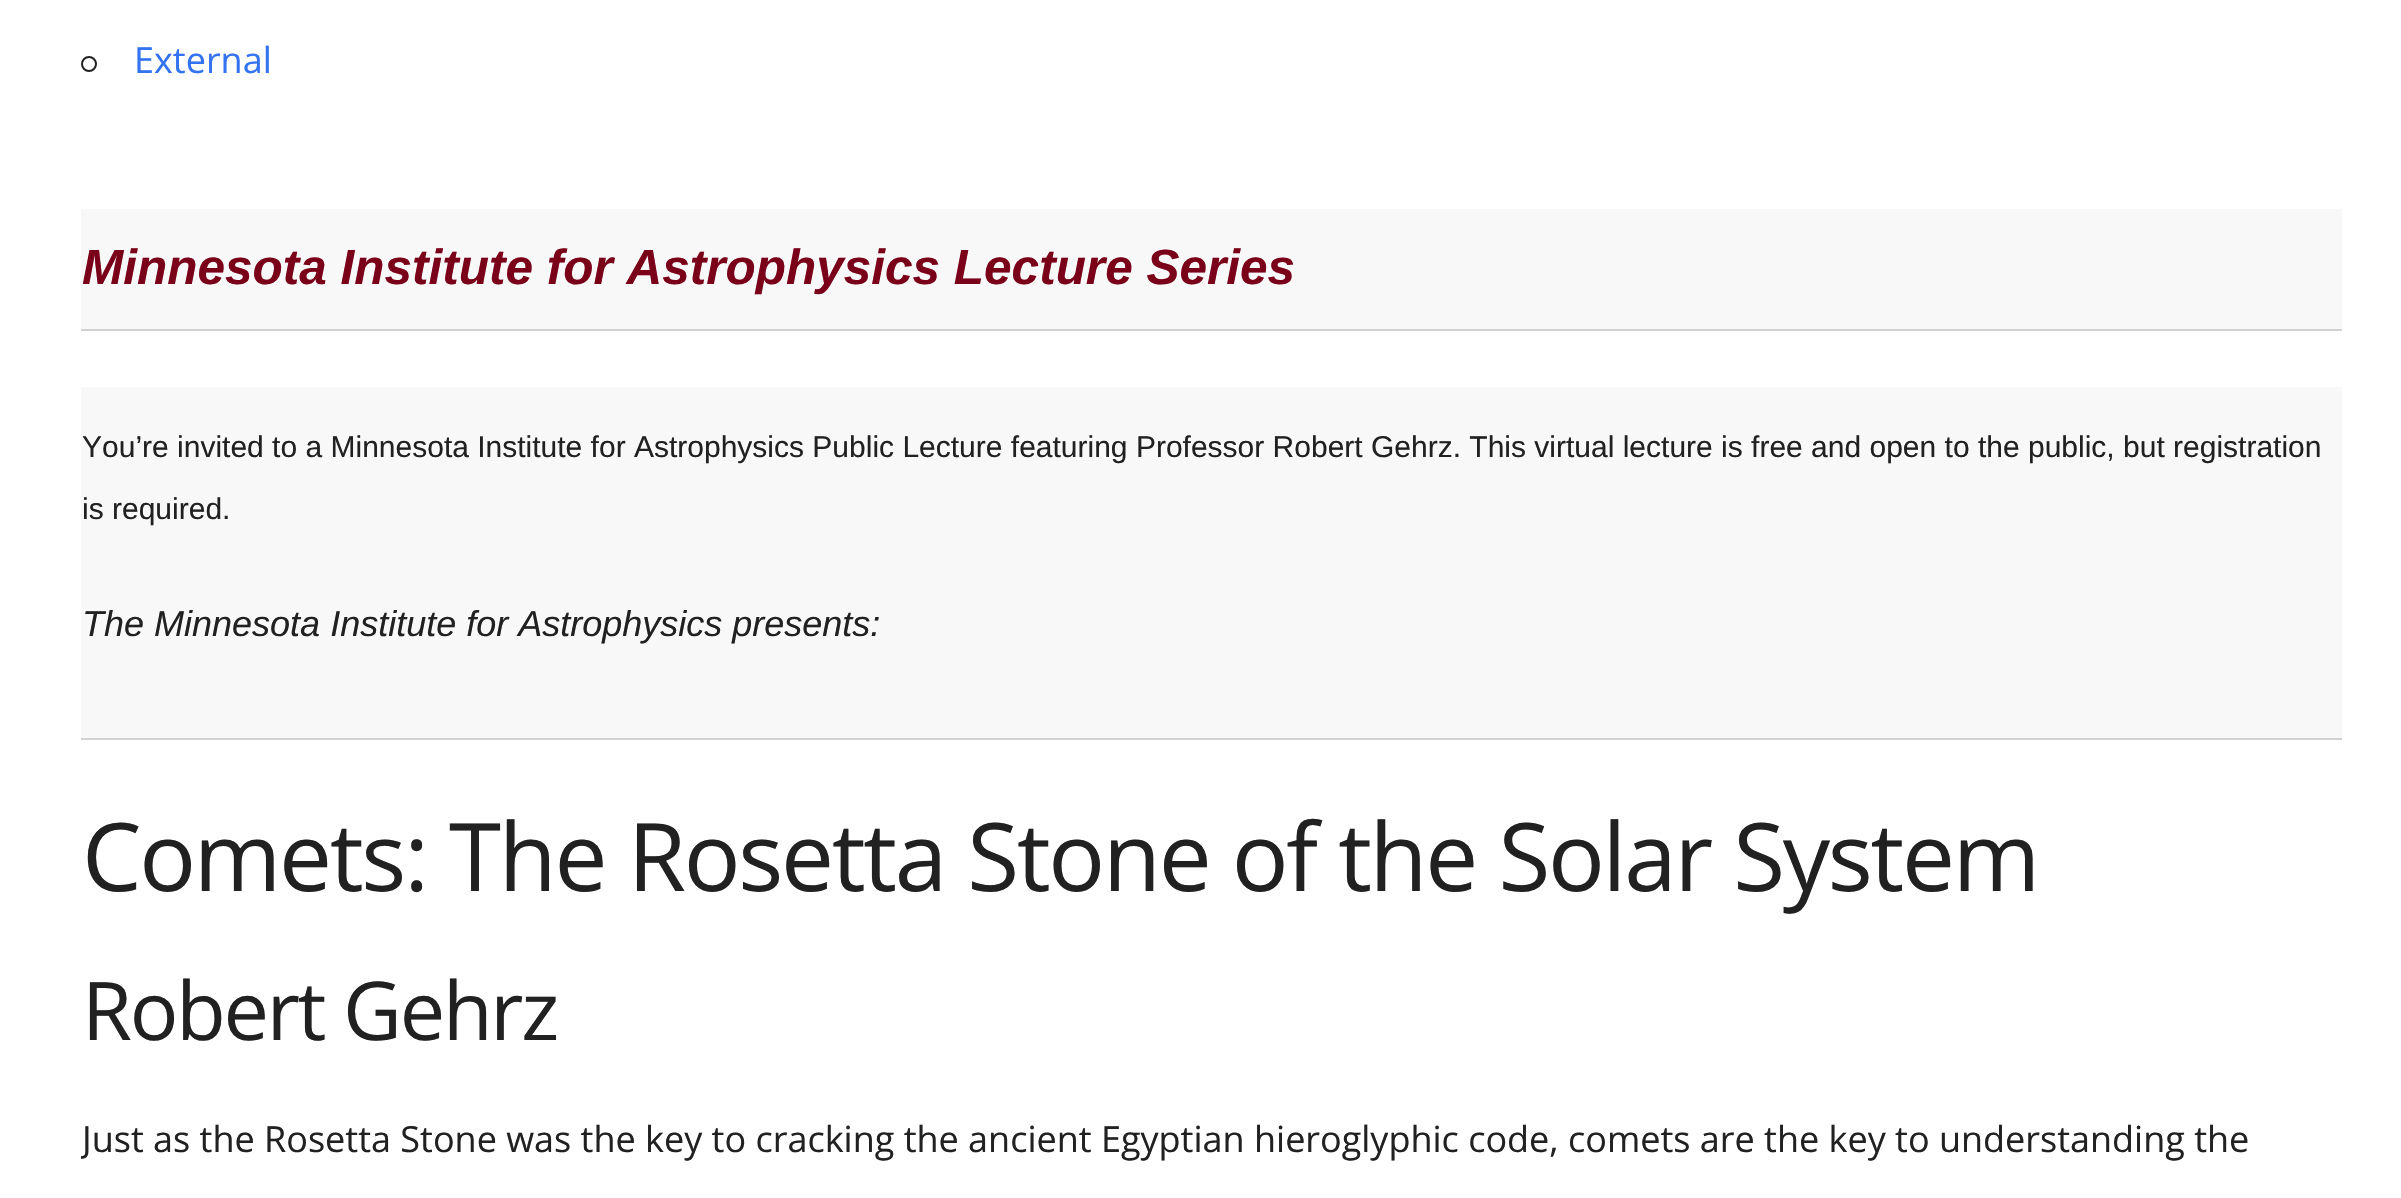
void draw(SkCanvas* canvas) {
	SkPaint paint;
	paint.setAntiAlias(true);
	auto spacedText = [&](const char* s, float x, float y, const SkFont& font, const SkPaint& ink, float letter, float word) {
		std::vector<SkGlyphID> glyphs(font.countText(s, strlen(s), SkTextEncoding::kUTF8));
		std::vector<float> xs(glyphs.size());
		font.textToGlyphs(s, strlen(s), SkTextEncoding::kUTF8, glyphs);
		font.getXPos(glyphs, xs, x);
		float extra = 0;
		for (size_t i = 0; i < glyphs.size(); i++) {
			xs[i] += extra;
			extra += letter + word * (glyphs[i] == font.unicharToGlyph(' '));
		}
		canvas->drawTextBlob(SkTextBlob::MakeFromPosHGlyphs(glyphs, xs, y, font), 0, 0, ink);
	};
	canvas->clear(0xffffffff);
	paint.setStroke(true);
	paint.setStrokeWidth(2);
	paint.setColor(0xff212121);
	canvas->drawCircle(89, 64, 7, paint);
	SkFont f1(fontMgr->matchFamilyStyle("Open Sans", SkFontStyle::Normal()), 36);
	f1.setSubpixel(true);
	paint.setStroke(false);
	paint.setColor(0xff3372f0);
	canvas->drawString("External", 134, 73, f1, paint);
	paint.setColor(0xfff8f8f8);
	canvas->drawRect(SkRect::MakeXYWH(81, 209, 2261, 120), paint);
	paint.setColor(0xffd1d1d1);
	canvas->drawRect(SkRect::MakeXYWH(81, 329, 2261, 2), paint);
	SkFont f2(fontMgr->matchFamilyStyle("Liberation Sans", SkFontStyle::BoldItalic()), 49.5);
	f2.setSubpixel(true);
	paint.setColor(0xff7a0019);
	canvas->drawString("Minnesota Institute for Astrophysics Lecture Series", 82, 284, f2, paint);
	paint.setColor(0xfff8f8f8);
	canvas->drawRect(SkRect::MakeXYWH(81, 387, 2261, 351), paint);
	paint.setColor(0xffd1d1d1);
	canvas->drawRect(SkRect::MakeXYWH(81, 738, 2261, 2), paint);
	SkFont f3(fontMgr->matchFamilyStyle("Liberation Sans", SkFontStyle::Normal()), 30);
	f3.setSubpixel(true);
	paint.setColor(0xff212121);
	canvas->drawString("You’re invited to a Minnesota Institute for Astrophysics Public Lecture featuring Professor Robert Gehrz. This virtual lecture is free and open to the public, but registration", 82, 457, f3, paint);
	canvas->drawString("is required.", 82, 519, f3, paint);
	SkFont f4(fontMgr->matchFamilyStyle("Liberation Sans", SkFontStyle::Italic()), 36);
	f4.setSubpixel(true);
	canvas->drawString("The Minnesota Institute for Astrophysics presents:", 82, 636, f4, paint);
	SkFont f5(fontMgr->matchFamilyStyle("Open Sans", SkFontStyle::Normal()), 94.5);
	f5.setSubpixel(true);
	spacedText("Comets: The Rosetta Stone of the Solar System", 82, 891, f5, paint, -2.25, 0);
	SkFont f6(fontMgr->matchFamilyStyle("Open Sans", SkFontStyle::Normal()), 81);
	f6.setSubpixel(true);
	spacedText("Robert Gehrz", 82, 1040, f6, paint, -2.25, 0);
	canvas->save();
	canvas->clipRect(SkRect::MakeXYWH(81, 0, 2261, 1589));
	canvas->drawString("Just as the Rosetta Stone was the key to cracking the ancient Egyptian hieroglyphic code, comets are the key to understanding the", 82, 1152, f1, paint);
	canvas->restore();
}
